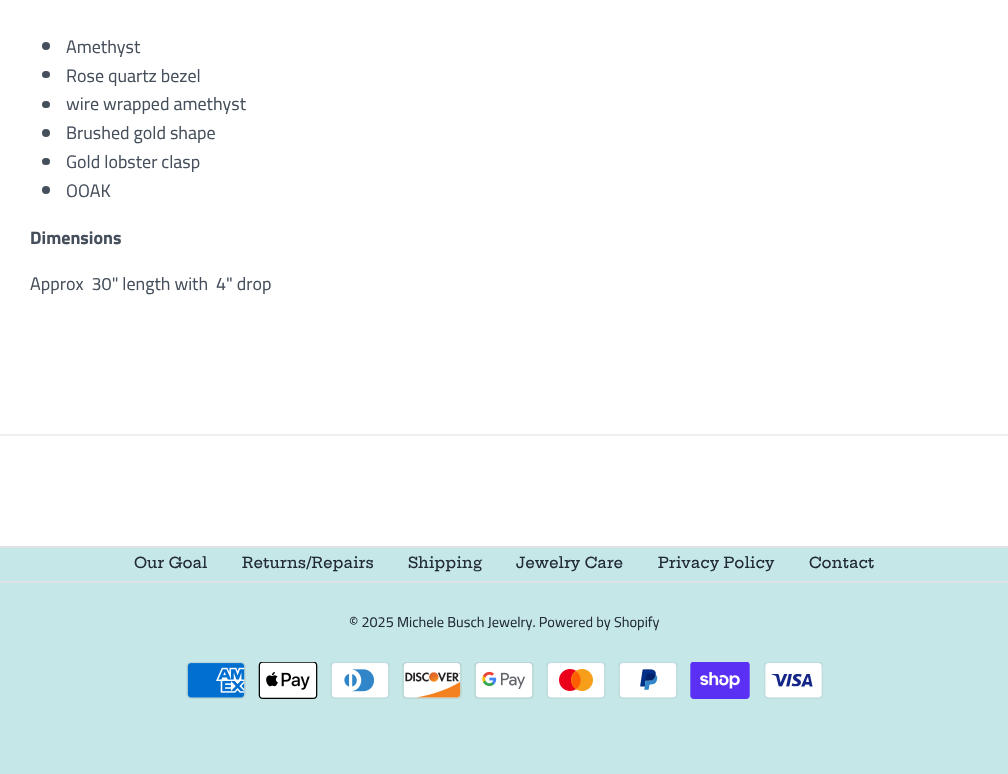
void draw(SkCanvas* canvas) {
	SkPaint paint;
	paint.setAntiAlias(true);
	canvas->clear(0xffffffff);
	paint.setColor(0xff454f5b);
	canvas->drawCircle(46, 46, 4, paint);
	SkFont f1(fontMgr->matchFamilyStyle("Titillium Web", SkFontStyle::Normal()), 18);
	f1.setSubpixel(true);
	canvas->drawString("Amethyst", 66, 53, f1, paint);
	canvas->drawRoundRect(SkRect::MakeXYWH(42, 71, 8, 7), 3.5, 3.5, paint);
	canvas->drawString("Rose quartz bezel", 66, 82, f1, paint);
	canvas->drawRoundRect(SkRect::MakeXYWH(42, 101, 8, 7), 3.5, 3.5, paint);
	canvas->drawString("wire wrapped amethyst", 66, 110, f1, paint);
	canvas->drawCircle(46, 133, 4, paint);
	canvas->drawString("Brushed gold shape", 66, 139, f1, paint);
	canvas->drawRoundRect(SkRect::MakeXYWH(42, 158, 8, 7), 3.5, 3.5, paint);
	canvas->drawString("Gold lobster clasp", 66, 168, f1, paint);
	canvas->drawCircle(46, 190, 4, paint);
	canvas->drawString("OOAK", 66, 197, f1, paint);
	SkFont f2(fontMgr->matchFamilyStyle("Titillium Web", SkFontStyle::Bold()), 18);
	f2.setSubpixel(true);
	canvas->drawString("Dimensions", 30, 244, f2, paint);
	canvas->drawString("Approx  30\" length with  4\" drop", 30, 290, f1, paint);
	paint.setColor(0xfff0f0f0);
	canvas->drawRect(SkRect::MakeXYWH(0, 434, 1008, 2), paint);
	paint.setColor(0xffc6e7e7);
	canvas->drawRect(SkRect::MakeXYWH(0, 548, 1008, 226), paint);
	paint.setColor(0xffdfe3e8);
	canvas->drawRect(SkRect::MakeXYWH(0, 546, 1008, 2), paint);
	canvas->drawRect(SkRect::MakeXYWH(0, 581, 1008, 2), paint);
	SkFont f3(fontMgr->matchFamilyStyle("Hepta Slab", SkFontStyle(500, SkFontStyle::kNormal_Width, SkFontStyle::kUpright_Slant)), 15);
	f3.setSubpixel(true);
	paint.setColor(0xff212b36);
	canvas->drawString("Our Goal", 134, 568, f3, paint);
	canvas->drawString("Returns/Repairs", 242, 568, f3, paint);
	canvas->drawString("Shipping", 408, 568, f3, paint);
	canvas->drawString("Jewelry Care", 516, 568, f3, paint);
	canvas->drawString("Privacy Policy", 658, 568, f3, paint);
	canvas->drawString("Contact", 809, 568, f3, paint);
	SkFont f4(fontMgr->matchFamilyStyle("Titillium Web", SkFontStyle::Normal()), 14.4);
	f4.setSubpixel(true);
	canvas->drawString("© 2025 Michele Busch Jewelry. Powered by Shopify", 349, 627, f4, paint);
	canvas->drawImageRect(SkImages::DeferredFromEncodedData(SkData::MakeFromFileName("img1.png")), SkRect::MakeXYWH(186, 662, 60, 37), SkSamplingOptions());
	canvas->drawImageRect(SkImages::DeferredFromEncodedData(SkData::MakeFromFileName("img2.png")), SkRect::MakeXYWH(258, 662, 60, 37), SkSamplingOptions());
	canvas->drawImageRect(SkImages::DeferredFromEncodedData(SkData::MakeFromFileName("img3.png")), SkRect::MakeXYWH(330, 662, 60, 37), SkSamplingOptions());
	canvas->drawImageRect(SkImages::DeferredFromEncodedData(SkData::MakeFromFileName("img4.png")), SkRect::MakeXYWH(402, 662, 60, 37), SkSamplingOptions());
	canvas->drawImageRect(SkImages::DeferredFromEncodedData(SkData::MakeFromFileName("img5.png")), SkRect::MakeXYWH(474, 662, 60, 37), SkSamplingOptions());
	canvas->drawImageRect(SkImages::DeferredFromEncodedData(SkData::MakeFromFileName("img6.png")), SkRect::MakeXYWH(546, 662, 60, 37), SkSamplingOptions());
	canvas->drawImageRect(SkImages::DeferredFromEncodedData(SkData::MakeFromFileName("img7.png")), SkRect::MakeXYWH(618, 662, 60, 37), SkSamplingOptions());
	canvas->drawImageRect(SkImages::DeferredFromEncodedData(SkData::MakeFromFileName("img8.png")), SkRect::MakeXYWH(690, 662, 60, 37), SkSamplingOptions());
	canvas->drawImageRect(SkImages::DeferredFromEncodedData(SkData::MakeFromFileName("img9.png")), SkRect::MakeXYWH(764, 662, 59, 37), SkSamplingOptions());
}
